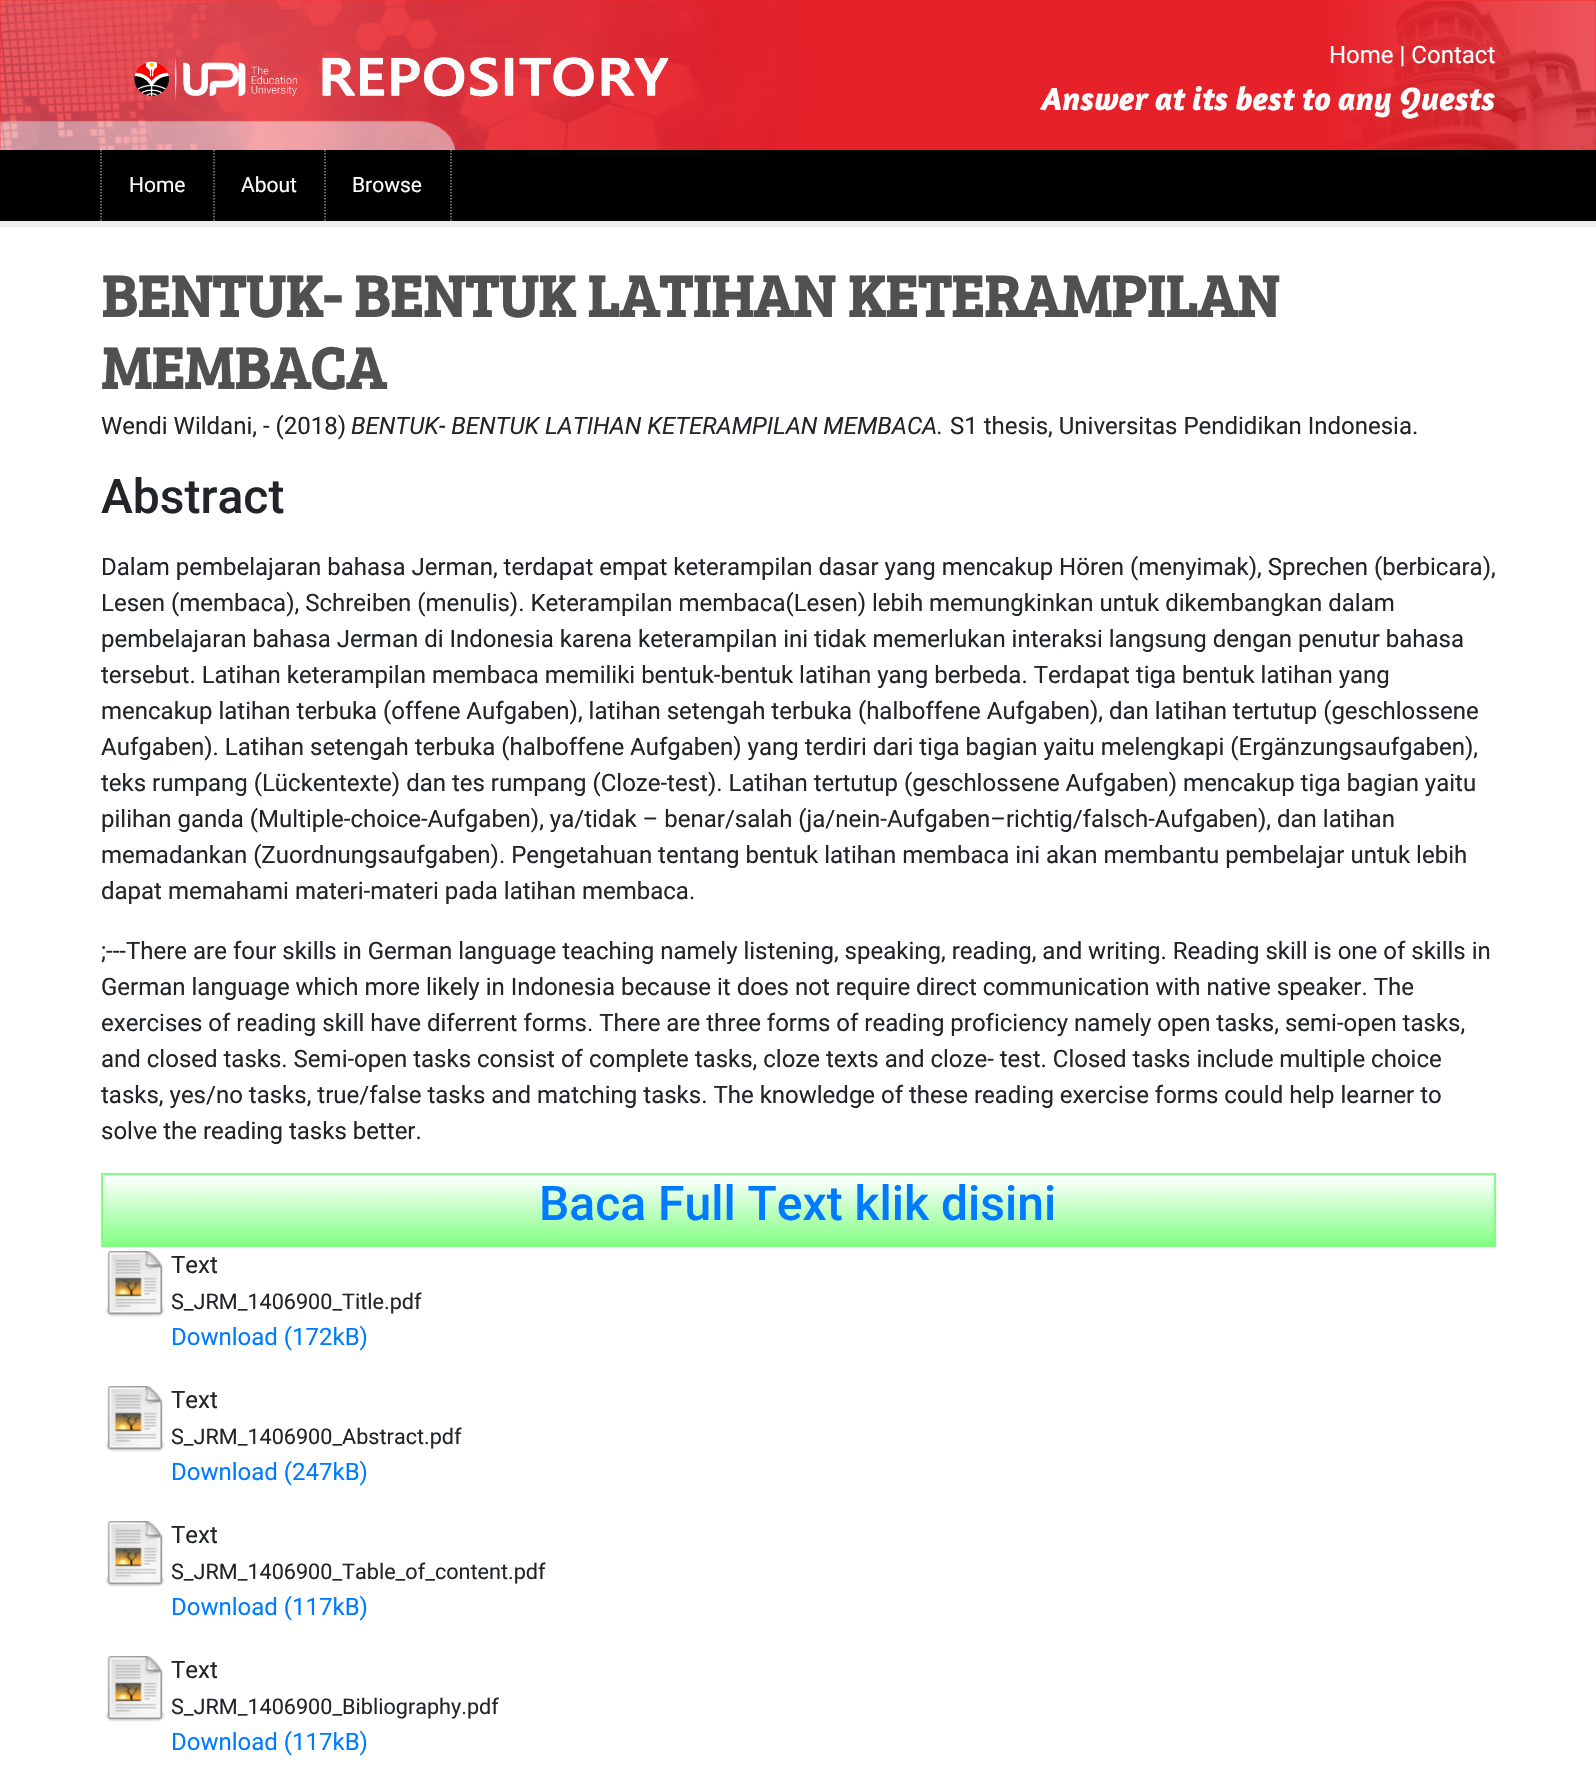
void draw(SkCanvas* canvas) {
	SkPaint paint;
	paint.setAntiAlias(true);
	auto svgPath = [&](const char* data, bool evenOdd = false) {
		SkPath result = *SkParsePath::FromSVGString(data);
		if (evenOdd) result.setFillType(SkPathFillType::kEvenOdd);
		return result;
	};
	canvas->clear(0xffffffff);
	paint.setColor(0xfff32a29);
	canvas->drawRect(SkRect::MakeXYWH(0, 0, 1596, 150), paint);
	canvas->drawImageRect(SkImages::DeferredFromEncodedData(SkData::MakeFromFileName("img1.png")), SkRect::MakeXYWH(0, 0, 1596, 150), SkSamplingOptions());
	canvas->drawImageRect(SkImages::DeferredFromEncodedData(SkData::MakeFromFileName("img2.png")), SkRect::MakeXYWH(134, 57, 535, 43), SkSamplingOptions());
	SkFont f1(fontMgr->matchFamilyStyle("Roboto", SkFontStyle::Normal()), 24);
	f1.setSubpixel(true);
	paint.setColor(0xffffffff);
	canvas->drawString("Home | Contact", 1329, 63, f1, paint);
	SkFont f2(fontMgr->matchFamilyStyle("Amaranth", SkFontStyle::BoldItalic()), 33);
	f2.setSubpixel(true);
	canvas->drawString("Answer at its best to any Quests", 1042, 110, f2, paint);
	paint.setColor(0xff000000);
	canvas->drawRect(SkRect::MakeXYWH(0, 150, 1596, 71), paint);
	paint.setStroke(true);
	paint.setStrokeWidth(1.5);
	paint.setColor(0xff888888);
	paint.setPathEffect(SkDashPathEffect::Make({{1.5f, 1.5f}}, 0));
	canvas->drawPath(svgPath("M101 150V220.5"), paint);
	paint.setPathEffect(nullptr);
	SkFont f3(fontMgr->matchFamilyStyle("Roboto", SkFontStyle::Normal()), 21);
	f3.setSubpixel(true);
	paint.setStroke(false);
	paint.setColor(0xffffffff);
	canvas->drawString("Home", 129, 192, f3, paint);
	paint.setStroke(true);
	paint.setColor(0xff888888);
	paint.setPathEffect(SkDashPathEffect::Make({{1.5f, 1.5f}}, 0));
	canvas->drawPath(svgPath("M214 150V220.5"), paint);
	paint.setPathEffect(nullptr);
	paint.setStroke(false);
	paint.setColor(0xffffffff);
	canvas->drawString("About", 241, 192, f3, paint);
	paint.setStroke(true);
	paint.setColor(0xff888888);
	paint.setPathEffect(SkDashPathEffect::Make({{1.5f, 1.5f}}, 0));
	canvas->drawPath(svgPath("M325 150V220.5"), paint);
	paint.setPathEffect(nullptr);
	paint.setStroke(false);
	paint.setColor(0xffffffff);
	canvas->drawString("Browse", 352, 192, f3, paint);
	paint.setStroke(true);
	paint.setColor(0xff888888);
	paint.setPathEffect(SkDashPathEffect::Make({{1.5f, 1.5f}}, 0));
	canvas->drawPath(svgPath("M451 150V220.5"), paint);
	paint.setPathEffect(nullptr);
	paint.setStroke(false);
	paint.setColor(0xffeeeeee);
	canvas->drawRect(SkRect::MakeXYWH(0, 221, 1596, 6), paint);
	SkFont f4(fontMgr->matchFamilyStyle("Bree Serif", SkFontStyle::Bold()), 60);
	f4.setSubpixel(true);
	paint.setColor(0xff505050);
	canvas->drawString("BENTUK- BENTUK LATIHAN KETERAMPILAN", 101, 317, f4, paint);
	canvas->drawString("MEMBACA", 101, 389, f4, paint);
	paint.setColor(0xff212529);
	canvas->drawString("Wendi Wildani, - (2018)", 101, 434, f1, paint);
	SkFont f5(fontMgr->matchFamilyStyle("Roboto", SkFontStyle::Italic()), 24);
	f5.setSubpixel(true);
	canvas->drawString("BENTUK- BENTUK LATIHAN KETERAMPILAN MEMBACA.", 351, 434, f5, paint);
	canvas->drawString("S1 thesis, Universitas Pendidikan Indonesia.", 950, 434, f1, paint);
	SkFont f6(fontMgr->matchFamilyStyle("Roboto", SkFontStyle(500, SkFontStyle::kNormal_Width, SkFontStyle::kUpright_Slant)), 48);
	f6.setSubpixel(true);
	canvas->drawString("Abstract", 101, 513, f6, paint);
	canvas->drawString("Dalam pembelajaran bahasa Jerman, terdapat empat keterampilan dasar yang mencakup Hören (menyimak), Sprechen (berbicara),", 101, 575, f1, paint);
	canvas->drawString("Lesen (membaca), Schreiben (menulis). Keterampilan membaca(Lesen) lebih memungkinkan untuk dikembangkan dalam", 101, 611, f1, paint);
	canvas->drawString("pembelajaran bahasa Jerman di Indonesia karena keterampilan ini tidak memerlukan interaksi langsung dengan penutur bahasa", 101, 647, f1, paint);
	canvas->drawString("tersebut. Latihan keterampilan membaca memiliki bentuk-bentuk latihan yang berbeda. Terdapat tiga bentuk latihan yang", 101, 683, f1, paint);
	canvas->drawString("mencakup latihan terbuka (offene Aufgaben), latihan setengah terbuka (halboffene Aufgaben), dan latihan tertutup (geschlossene", 101, 719, f1, paint);
	canvas->drawString("Aufgaben). Latihan setengah terbuka (halboffene Aufgaben) yang terdiri dari tiga bagian yaitu melengkapi (Ergänzungsaufgaben),", 101, 755, f1, paint);
	canvas->drawString("teks rumpang (Lückentexte) dan tes rumpang (Cloze-test). Latihan tertutup (geschlossene Aufgaben) mencakup tiga bagian yaitu", 101, 791, f1, paint);
	canvas->drawString("pilihan ganda (Multiple-choice-Aufgaben), ya/tidak – benar/salah (ja/nein-Aufgaben–richtig/falsch-Aufgaben), dan latihan", 101, 827, f1, paint);
	canvas->drawString("memadankan (Zuordnungsaufgaben). Pengetahuan tentang bentuk latihan membaca ini akan membantu pembelajar untuk lebih", 101, 863, f1, paint);
	canvas->drawString("dapat memahami materi-materi pada latihan membaca.", 101, 899, f1, paint);
	canvas->drawString(";---There are four skills in German language teaching namely listening, speaking, reading, and writing. Reading skill is one of skills in", 101, 959, f1, paint);
	canvas->drawString("German language which more likely in Indonesia because it does not require direct communication with native speaker. The", 101, 995, f1, paint);
	canvas->drawString("exercises of reading skill have diferrent forms. There are three forms of reading proficiency namely open tasks, semi-open tasks,", 101, 1031, f1, paint);
	canvas->drawString("and closed tasks. Semi-open tasks consist of complete tasks, cloze texts and cloze- test. Closed tasks include multiple choice", 101, 1067, f1, paint);
	canvas->drawString("tasks, yes/no tasks, true/false tasks and matching tasks. The knowledge of these reading exercise forms could help learner to", 101, 1103, f1, paint);
	canvas->drawString("solve the reading tasks better.", 101, 1139, f1, paint);
	paint.setColor(0xff80ff80);
	canvas->drawRect(SkRect::MakeXYWH(103, 1176, 1391, 69), paint);
	canvas->drawImageRect(SkImages::DeferredFromEncodedData(SkData::MakeFromFileName("img3.png")), SkRect::MakeXYWH(103, 1175, 1391, 69), SkSamplingOptions());
	paint.setStroke(true);
	paint.setStrokeWidth(2);
	canvas->drawRect(SkRect::MakeXYWH(102, 1174, 1393, 72), paint);
	paint.setStroke(false);
	paint.setColor(0xff007bff);
	canvas->drawString("Baca Full Text klik disini", 539, 1220, f6, paint);
	canvas->drawImageRect(SkImages::DeferredFromEncodedData(SkData::MakeFromFileName("img4.png")), SkRect::MakeXYWH(105, 1251, 60, 66), SkSamplingOptions());
	paint.setColor(0xff212529);
	canvas->drawString("Text", 171, 1273, f1, paint);
	SkFont f7(fontMgr->matchFamilyStyle("Roboto", SkFontStyle::Normal()), 21.6);
	f7.setSubpixel(true);
	canvas->drawString("S_JRM_1406900_Title.pdf", 171, 1309, f7, paint);
	paint.setColor(0xff007bff);
	canvas->drawString("Download (172kB)", 171, 1345, f1, paint);
	canvas->drawImageRect(SkImages::DeferredFromEncodedData(SkData::MakeFromFileName("img4.png")), SkRect::MakeXYWH(105, 1386, 60, 66), SkSamplingOptions());
	paint.setColor(0xff212529);
	canvas->drawString("Text", 171, 1408, f1, paint);
	canvas->drawString("S_JRM_1406900_Abstract.pdf", 171, 1444, f7, paint);
	paint.setColor(0xff007bff);
	canvas->drawString("Download (247kB)", 171, 1480, f1, paint);
	canvas->drawImageRect(SkImages::DeferredFromEncodedData(SkData::MakeFromFileName("img4.png")), SkRect::MakeXYWH(105, 1521, 60, 66), SkSamplingOptions());
	paint.setColor(0xff212529);
	canvas->drawString("Text", 171, 1543, f1, paint);
	canvas->drawString("S_JRM_1406900_Table_of_content.pdf", 171, 1579, f7, paint);
	paint.setColor(0xff007bff);
	canvas->drawString("Download (117kB)", 171, 1615, f1, paint);
	canvas->drawImageRect(SkImages::DeferredFromEncodedData(SkData::MakeFromFileName("img4.png")), SkRect::MakeXYWH(105, 1656, 60, 66), SkSamplingOptions());
	paint.setColor(0xff212529);
	canvas->drawString("Text", 171, 1678, f1, paint);
	canvas->drawString("S_JRM_1406900_Bibliography.pdf", 171, 1714, f7, paint);
	paint.setColor(0xff007bff);
	canvas->drawString("Download (117kB)", 171, 1750, f1, paint);
}
